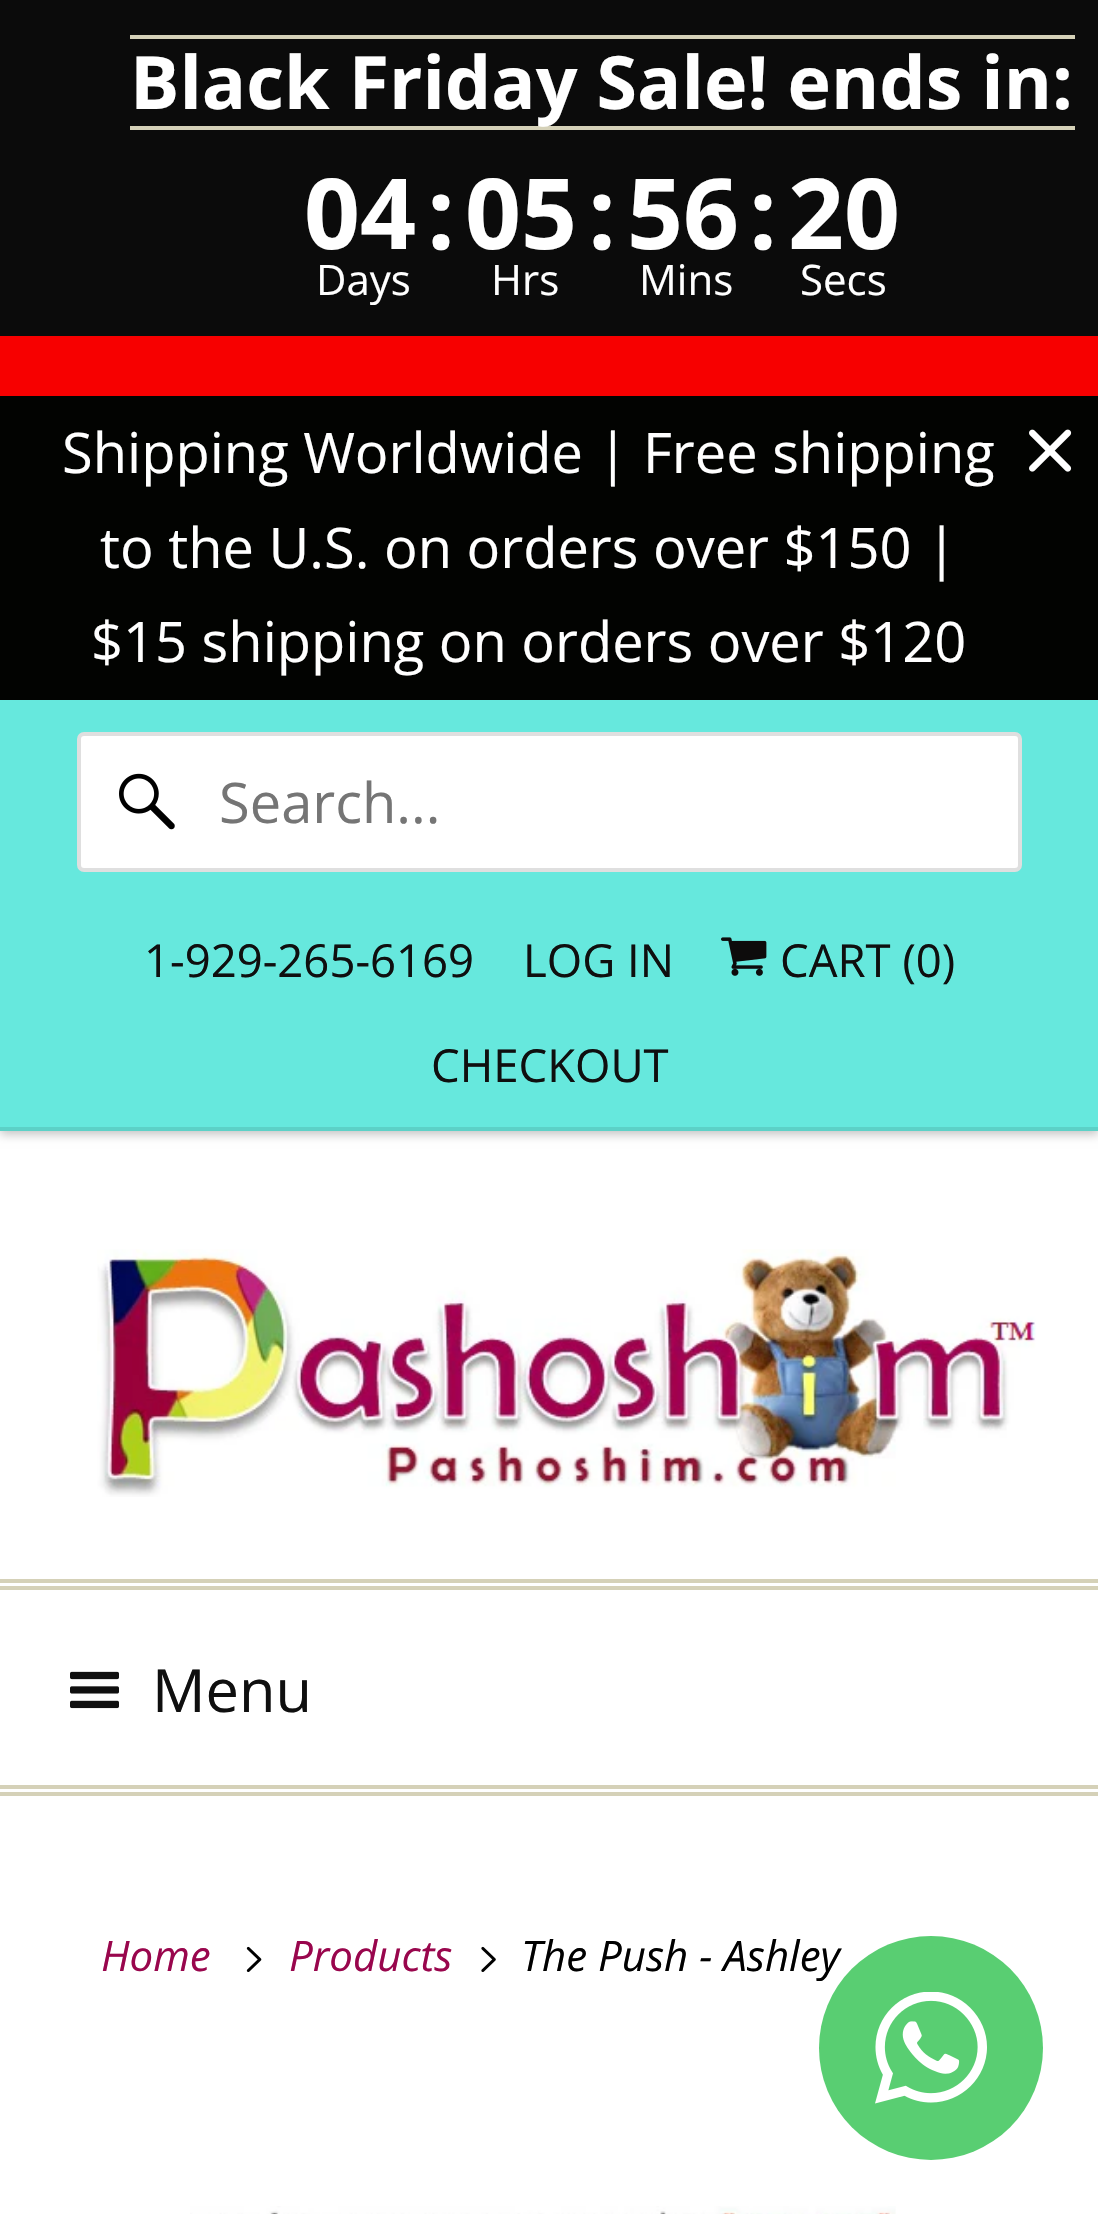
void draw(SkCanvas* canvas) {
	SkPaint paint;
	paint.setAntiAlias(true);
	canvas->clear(0xffffffff);
	paint.setColor(0xff0b0b0b);
	canvas->drawRect(SkRect::MakeXYWH(0, 0, 1098, 336), paint);
	paint.setColor(0xfff70000);
	canvas->drawRect(SkRect::MakeXYWH(0, 336, 1098, 60), paint);
	paint.setColor(0xffd5d1b8);
	canvas->drawRect(SkRect::MakeXYWH(130, 35, 945, 4), paint);
	canvas->drawRect(SkRect::MakeXYWH(130, 126, 945, 4), paint);
	SkFont f1(fontMgr->matchFamilyStyle("Open Sans", SkFontStyle::Bold()), 73.5);
	f1.setSubpixel(true);
	paint.setColor(0xffffffff);
	canvas->drawString("Black Friday Sale! ends in:", 130, 109, f1, paint);
	SkFont f2(fontMgr->matchFamilyStyle("Open Sans", SkFontStyle::Bold()), 98);
	f2.setSubpixel(true);
	canvas->drawString("04", 304, 249, f2, paint);
	canvas->drawString(":", 427, 249, f2, paint);
	canvas->drawString("05", 465, 249, f2, paint);
	canvas->drawString(":", 588, 249, f2, paint);
	canvas->drawString("56", 627, 249, f2, paint);
	canvas->drawString(":", 749, 249, f2, paint);
	canvas->drawString("20", 788, 249, f2, paint);
	SkFont f3(fontMgr->matchFamilyStyle("Open Sans", SkFontStyle::Normal()), 42);
	f3.setSubpixel(true);
	canvas->drawString("Days", 316, 295, f3, paint);
	canvas->drawString("Hrs", 491, 295, f3, paint);
	canvas->drawString("Mins", 639, 295, f3, paint);
	canvas->drawString("Secs", 800, 295, f3, paint);
	paint.setColor(0xff020301);
	canvas->drawRect(SkRect::MakeXYWH(0, 396, 1098, 304), paint);
	SkFont f4(fontMgr->matchFamilyStyle("Open Sans", SkFontStyle::Normal()), 56);
	f4.setSubpixel(true);
	paint.setColor(0xffffffff);
	canvas->drawString("Shipping Worldwide | Free shipping", 62, 473, f4, paint);
	canvas->drawString("to the U.S. on orders over $150 |", 100, 568, f4, paint);
	canvas->drawString("$15 shipping on orders over $120", 91, 662, f4, paint);
	canvas->drawImageRect(SkImages::DeferredFromEncodedData(SkData::MakeFromFileName("img1.png")), SkRect::MakeXYWH(1029, 429, 43, 43), SkSamplingOptions());
	paint.setColor(0x40000000);
	paint.setMaskFilter(SkMaskFilter::MakeBlur(kNormal_SkBlurStyle, 5));
	canvas->drawRect(SkRect::MakeXYWH(0, 704, 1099, 430), paint);
	paint.setMaskFilter(nullptr);
	paint.setColor(0xff66e8dd);
	canvas->drawRect(SkRect::MakeXYWH(0, 700, 1098, 427), paint);
	paint.setColor(0xff5cd1c7);
	canvas->drawRect(SkRect::MakeXYWH(0, 1127, 1098, 4), paint);
	paint.setColor(0xffffffff);
	canvas->drawRoundRect(SkRect::MakeXYWH(79, 734, 941, 136), 5, 5, paint);
	paint.setStroke(true);
	paint.setStrokeWidth(4);
	paint.setColor(0xffdfdfdf);
	canvas->drawRoundRect(SkRect::MakeXYWH(79, 734, 941, 136), 5, 5, paint);
	canvas->drawImageRect(SkImages::DeferredFromEncodedData(SkData::MakeFromFileName("img2.png")), SkRect::MakeXYWH(119, 773, 56, 57), SkSamplingOptions());
	paint.setStroke(false);
	paint.setColor(0xff757575);
	canvas->drawString("Search...", 219, 823, f4, paint);
	SkFont f5(fontMgr->matchFamilyStyle("Open Sans", SkFontStyle::Normal()), 45.5);
	f5.setSubpixel(true);
	paint.setColor(0xff0f0f0f);
	canvas->drawString("1-929-265-6169", 144, 977, f5, paint);
	canvas->drawString("LOG IN", 523, 977, f5, paint);
	canvas->drawImageRect(SkImages::DeferredFromEncodedData(SkData::MakeFromFileName("img3.png")), SkRect::MakeXYWH(721, 937, 46, 39), SkSamplingOptions());
	canvas->drawString("CART (0)", 780, 977, f5, paint);
	canvas->drawString("CHECKOUT", 431, 1082, f5, paint);
	canvas->drawImageRect(SkImages::DeferredFromEncodedData(SkData::MakeFromFileName("img4.png")), SkRect::MakeXYWH(97, 1249, 939, 248), SkSamplingOptions());
	paint.setColor(0xffd5d1b8);
	canvas->drawRect(SkRect::MakeXYWH(0, 1579, 1098, 4), paint);
	canvas->drawRect(SkRect::MakeXYWH(0, 1586, 1098, 4), paint);
	canvas->drawRect(SkRect::MakeXYWH(0, 1785, 1098, 4), paint);
	canvas->drawRect(SkRect::MakeXYWH(0, 1792, 1098, 4), paint);
	canvas->drawImageRect(SkImages::DeferredFromEncodedData(SkData::MakeFromFileName("img5.png")), SkRect::MakeXYWH(70, 1671, 49, 38), SkSamplingOptions());
	SkFont f6(fontMgr->matchFamilyStyle("Open Sans", SkFontStyle::Normal()), 59.5);
	f6.setSubpixel(true);
	paint.setColor(0xff0f0f0f);
	canvas->drawString("Menu", 152, 1712, f6, paint);
	SkFont f7(fontMgr->matchFamilyStyle("Open Sans", SkFontStyle::Italic()), 42);
	f7.setSubpixel(true);
	paint.setColor(0xff99064d);
	canvas->drawString("Home", 101, 1971, f7, paint);
	canvas->drawImageRect(SkImages::DeferredFromEncodedData(SkData::MakeFromFileName("img6.png")), SkRect::MakeXYWH(246, 1946, 16, 26), SkSamplingOptions());
	canvas->drawString("Products", 289, 1971, f7, paint);
	canvas->drawImageRect(SkImages::DeferredFromEncodedData(SkData::MakeFromFileName("img7.png")), SkRect::MakeXYWH(481, 1946, 15, 26), SkSamplingOptions());
	paint.setColor(0xff000000);
	canvas->drawString("The Push - Ashley", 521, 1971, f7, paint);
	paint.setColor(0xff59ce72);
	canvas->drawCircle(931, 2048, 112, paint);
	canvas->drawImageRect(SkImages::DeferredFromEncodedData(SkData::MakeFromFileName("img8.png")), SkRect::MakeXYWH(875, 1992, 112, 112), SkSamplingOptions());
	canvas->drawImageRect(SkImages::DeferredFromEncodedData(SkData::MakeFromFileName("img9.png")), SkRect::MakeXYWH(190, 2206, 706, 8), SkSamplingOptions());
}
